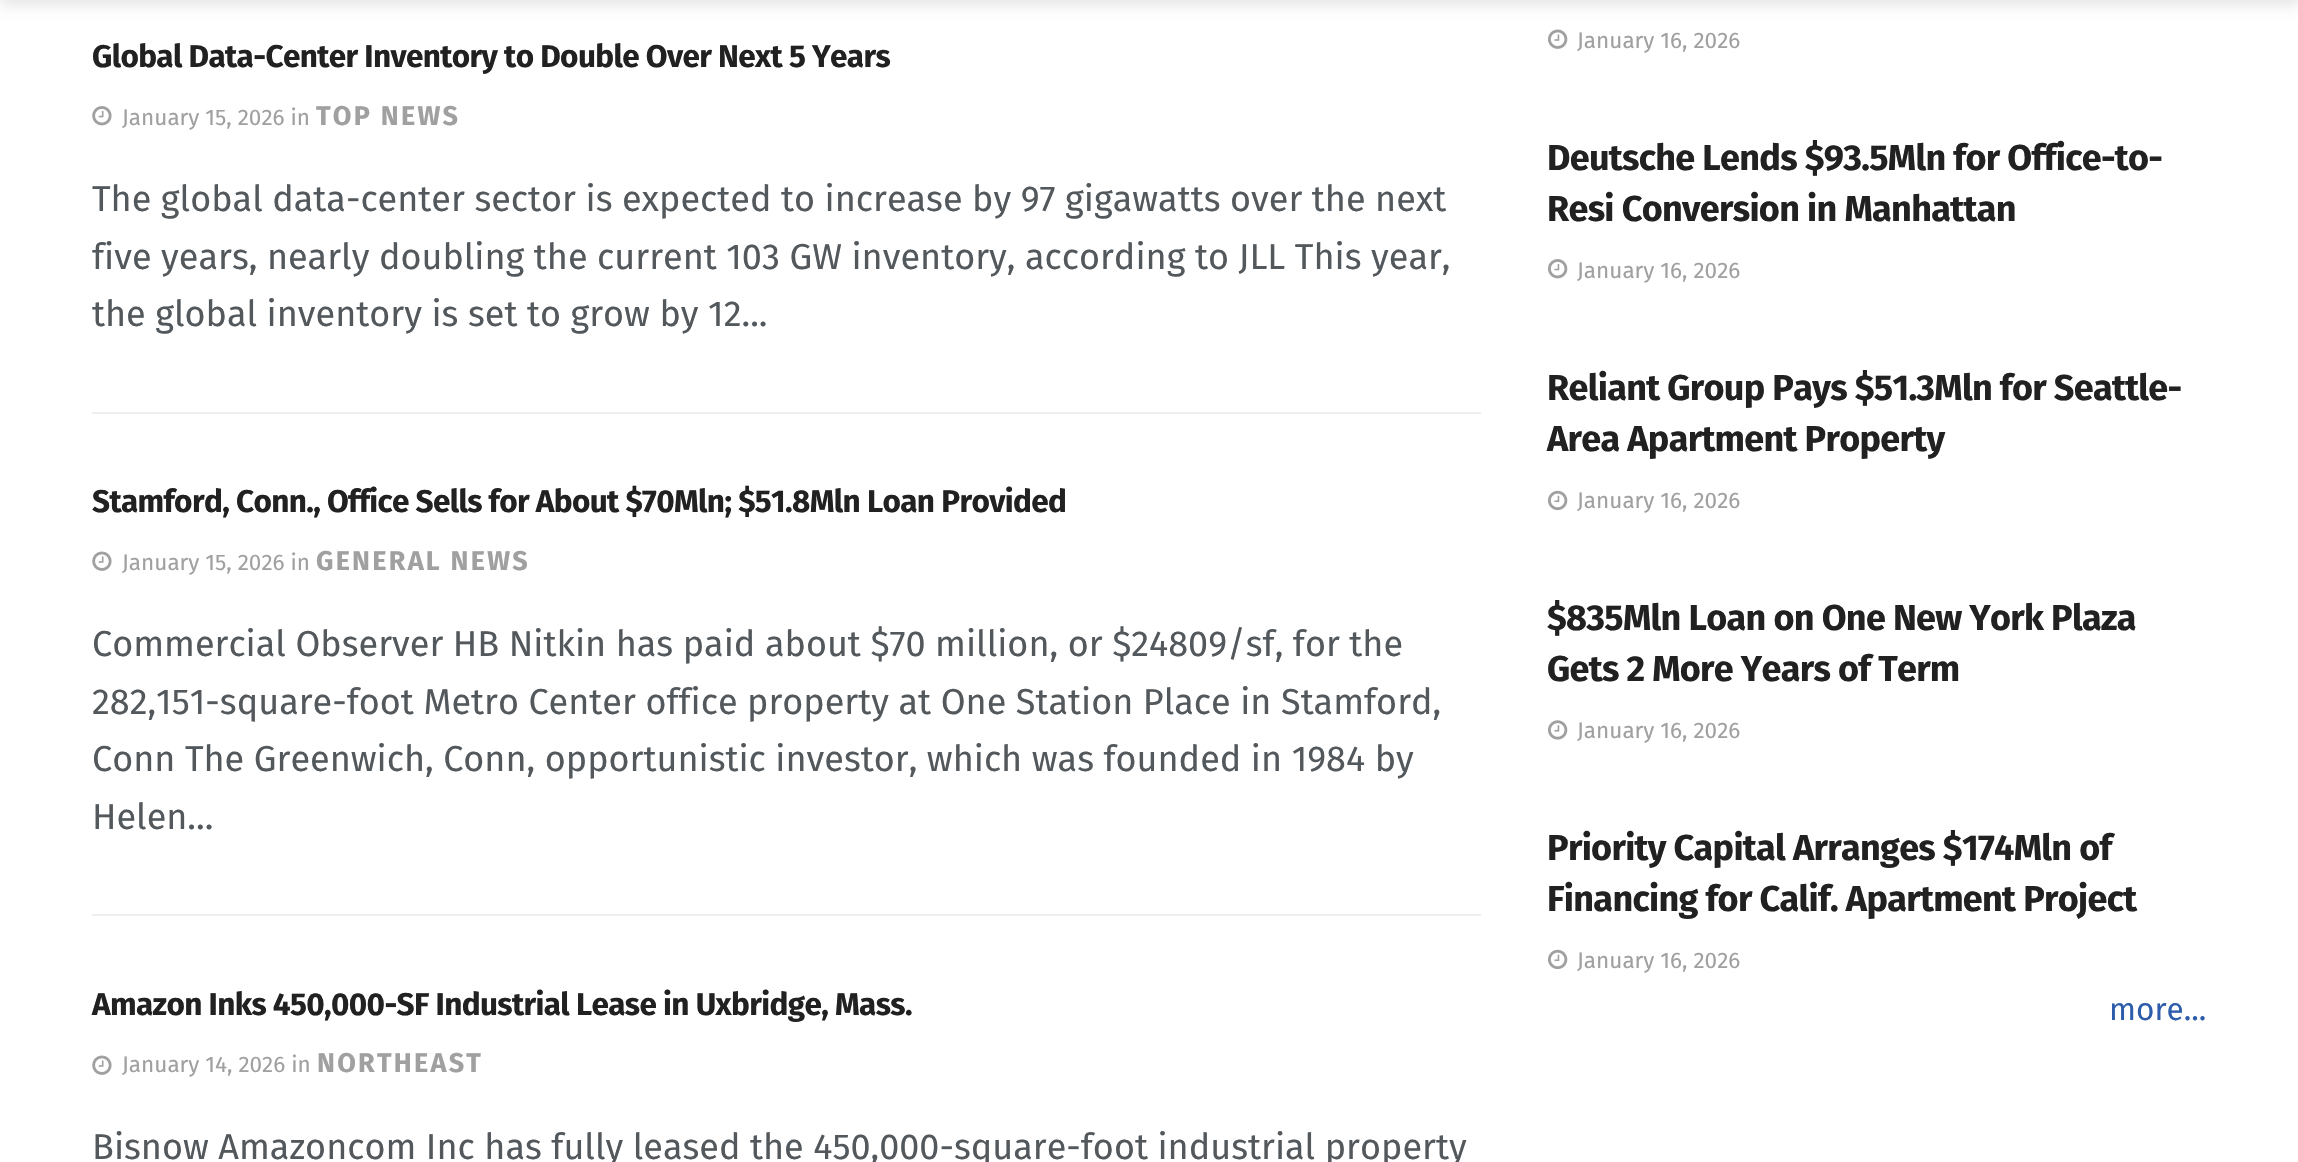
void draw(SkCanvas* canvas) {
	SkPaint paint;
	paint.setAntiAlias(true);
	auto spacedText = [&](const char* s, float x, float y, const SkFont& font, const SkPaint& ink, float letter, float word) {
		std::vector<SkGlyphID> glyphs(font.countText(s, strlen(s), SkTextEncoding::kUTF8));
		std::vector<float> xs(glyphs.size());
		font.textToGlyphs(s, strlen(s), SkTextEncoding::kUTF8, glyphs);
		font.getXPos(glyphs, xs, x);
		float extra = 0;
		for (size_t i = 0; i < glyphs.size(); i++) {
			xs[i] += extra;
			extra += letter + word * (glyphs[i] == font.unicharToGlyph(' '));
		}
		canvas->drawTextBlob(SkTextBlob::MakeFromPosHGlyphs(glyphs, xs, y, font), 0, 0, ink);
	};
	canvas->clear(0xffffffff);
	paint.setColor(0x1a000000);
	paint.setMaskFilter(SkMaskFilter::MakeBlur(kNormal_SkBlurStyle, 7));
	canvas->drawRect(SkRect::MakeXYWH(0, -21, 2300, 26), paint);
	paint.setMaskFilter(nullptr);
	paint.setColor(0xffeeeeee);
	canvas->drawRect(SkRect::MakeXYWH(92, 412, 1389, 2), paint);
	SkFont f1(fontMgr->matchFamilyStyle("Fira Sans", SkFontStyle::Bold()), 31.5);
	f1.setSubpixel(true);
	paint.setColor(0xff212121);
	spacedText("Global Data-Center Inventory to Double Over Next 5 Years", 92, 67, f1, paint, -0.63, 0);
	canvas->drawImageRect(SkImages::DeferredFromEncodedData(SkData::MakeFromFileName("img1.png")), SkRect::MakeXYWH(92, 106, 20, 20), SkSamplingOptions());
	SkFont f2(fontMgr->matchFamilyStyle("Fira Sans", SkFontStyle::Normal()), 22.5);
	f2.setSubpixel(true);
	paint.setColor(0xffa0a0a0);
	canvas->drawString("January 15, 2026 in", 122, 125, f2, paint);
	SkFont f3(fontMgr->matchFamilyStyle("Fira Sans", SkFontStyle::Bold()), 27);
	f3.setSubpixel(true);
	spacedText("TOP NEWS", 316, 125, f3, paint, 2.25, 0);
	SkFont f4(fontMgr->matchFamilyStyle("Fira Sans", SkFontStyle::Normal()), 36);
	f4.setSubpixel(true);
	paint.setColor(0xff53585c);
	canvas->drawString("The global data-center sector is expected to increase by 97 gigawatts over the next", 92, 211, f4, paint);
	canvas->drawString("five years, nearly doubling the current 103 GW inventory, according to JLL This year,", 92, 269, f4, paint);
	canvas->drawString("the global inventory is set to grow by 12...", 92, 326, f4, paint);
	paint.setColor(0xffeeeeee);
	canvas->drawRect(SkRect::MakeXYWH(92, 914, 1389, 2), paint);
	paint.setColor(0xff212121);
	spacedText("Stamford, Conn., Office Sells for About $70Mln; $51.8Mln Loan Provided", 92, 512, f1, paint, -0.63, 0);
	canvas->drawImageRect(SkImages::DeferredFromEncodedData(SkData::MakeFromFileName("img2.png")), SkRect::MakeXYWH(92, 551, 20, 20), SkSamplingOptions());
	paint.setColor(0xffa0a0a0);
	canvas->drawString("January 15, 2026 in", 122, 570, f2, paint);
	spacedText("GENERAL NEWS", 316, 570, f3, paint, 2.25, 0);
	paint.setColor(0xff53585c);
	canvas->drawString("Commercial Observer HB Nitkin has paid about $70 million, or $24809/sf, for the", 92, 656, f4, paint);
	canvas->drawString("282,151-square-foot Metro Center office property at One Station Place in Stamford,", 92, 714, f4, paint);
	canvas->drawString("Conn The Greenwich, Conn, opportunistic investor, which was founded in 1984 by", 92, 771, f4, paint);
	canvas->drawString("Helen...", 92, 829, f4, paint);
	paint.setColor(0xff212121);
	spacedText("Amazon Inks 450,000-SF Industrial Lease in Uxbridge, Mass.", 92, 1015, f1, paint, -0.63, 0);
	canvas->drawImageRect(SkImages::DeferredFromEncodedData(SkData::MakeFromFileName("img2.png")), SkRect::MakeXYWH(92, 1055, 20, 20), SkSamplingOptions());
	paint.setColor(0xffa0a0a0);
	canvas->drawString("January 14, 2026 in", 122, 1072, f2, paint);
	spacedText("NORTHEAST", 317, 1072, f3, paint, 2.25, 0);
	paint.setColor(0xff53585c);
	canvas->drawString("Bisnow Amazoncom Inc has fully leased the 450,000-square-foot industrial property", 92, 1159, f4, paint);
	canvas->drawImageRect(SkImages::DeferredFromEncodedData(SkData::MakeFromFileName("img3.png")), SkRect::MakeXYWH(1548, 29, 20, 20), SkSamplingOptions());
	paint.setColor(0xffa0a0a0);
	canvas->drawString("January 16, 2026", 1577, 48, f2, paint);
	SkFont f5(fontMgr->matchFamilyStyle("Fira Sans", SkFontStyle::Bold()), 36);
	f5.setSubpixel(true);
	paint.setColor(0xff212121);
	spacedText("Deutsche Lends $93.5Mln for Office-to-", 1547, 170, f5, paint, -0.7, 0);
	spacedText("Resi Conversion in Manhattan", 1547, 221, f5, paint, -0.7, 0);
	canvas->drawImageRect(SkImages::DeferredFromEncodedData(SkData::MakeFromFileName("img4.png")), SkRect::MakeXYWH(1548, 259, 20, 20), SkSamplingOptions());
	paint.setColor(0xffa0a0a0);
	canvas->drawString("January 16, 2026", 1577, 278, f2, paint);
	paint.setColor(0xff212121);
	spacedText("Reliant Group Pays $51.3Mln for Seattle-", 1547, 400, f5, paint, -0.7, 0);
	spacedText("Area Apartment Property", 1547, 451, f5, paint, -0.7, 0);
	canvas->drawImageRect(SkImages::DeferredFromEncodedData(SkData::MakeFromFileName("img5.png")), SkRect::MakeXYWH(1548, 490, 20, 21), SkSamplingOptions());
	paint.setColor(0xffa0a0a0);
	canvas->drawString("January 16, 2026", 1577, 508, f2, paint);
	paint.setColor(0xff212121);
	spacedText("$835Mln Loan on One New York Plaza", 1547, 630, f5, paint, -0.7, 0);
	spacedText("Gets 2 More Years of Term", 1547, 681, f5, paint, -0.7, 0);
	canvas->drawImageRect(SkImages::DeferredFromEncodedData(SkData::MakeFromFileName("img6.png")), SkRect::MakeXYWH(1548, 720, 20, 20), SkSamplingOptions());
	paint.setColor(0xffa0a0a0);
	canvas->drawString("January 16, 2026", 1577, 738, f2, paint);
	paint.setColor(0xff212121);
	spacedText("Priority Capital Arranges $174Mln of", 1547, 860, f5, paint, -0.7, 0);
	spacedText("Financing for Calif. Apartment Project", 1547, 911, f5, paint, -0.7, 0);
	canvas->drawImageRect(SkImages::DeferredFromEncodedData(SkData::MakeFromFileName("img5.png")), SkRect::MakeXYWH(1548, 949, 20, 21), SkSamplingOptions());
	paint.setColor(0xffa0a0a0);
	canvas->drawString("January 16, 2026", 1577, 968, f2, paint);
	SkFont f6(fontMgr->matchFamilyStyle("Fira Sans", SkFontStyle::Normal()), 31.5);
	f6.setSubpixel(true);
	paint.setColor(0xff2d5caa);
	canvas->drawString("more...", 2109, 1020, f6, paint);
}
